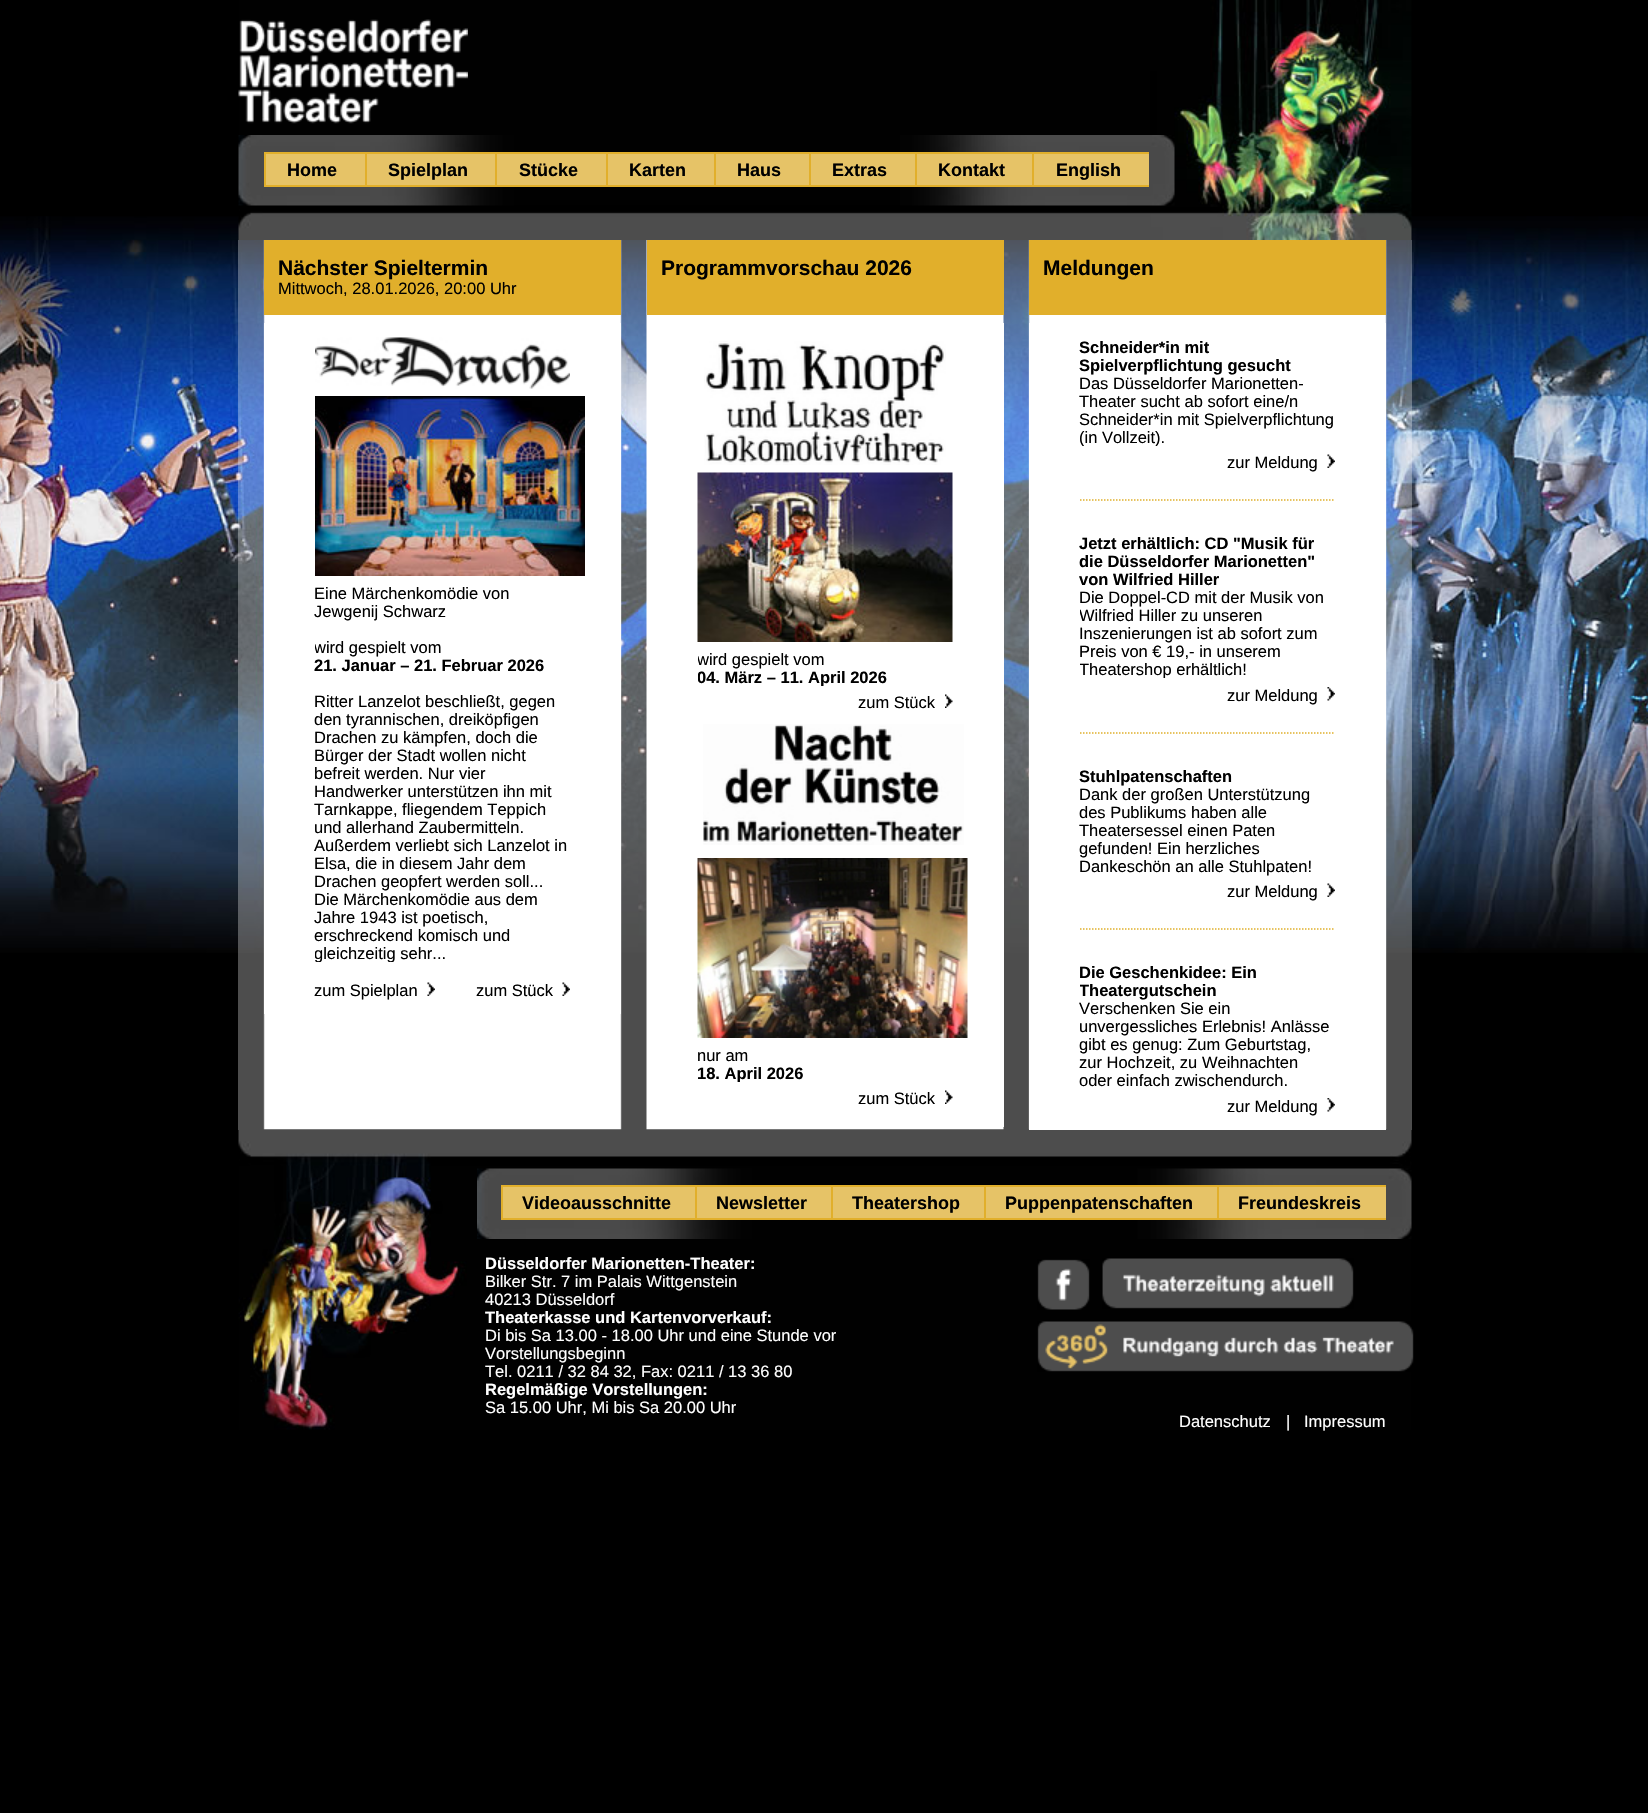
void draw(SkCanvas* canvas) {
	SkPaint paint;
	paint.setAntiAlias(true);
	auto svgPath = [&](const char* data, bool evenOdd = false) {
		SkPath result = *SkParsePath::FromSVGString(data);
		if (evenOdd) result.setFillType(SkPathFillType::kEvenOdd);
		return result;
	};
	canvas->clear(0xff000000);
	canvas->drawImageRect(SkImages::DeferredFromEncodedData(SkData::MakeFromFileName("img1.png")), SkRect::MakeXYWH(0, 216, 1648, 737), SkSamplingOptions());
	canvas->drawImageRect(SkImages::DeferredFromEncodedData(SkData::MakeFromFileName("img2.png")), SkRect::MakeXYWH(238, 0, 1174, 240), SkSamplingOptions());
	canvas->drawImageRect(SkImages::DeferredFromEncodedData(SkData::MakeFromFileName("img3.png")), SkRect::MakeXYWH(238, 19, 230, 105), SkSamplingOptions());
	canvas->drawImageRect(SkImages::DeferredFromEncodedData(SkData::MakeFromFileName("img4.png")), SkRect::MakeXYWH(238, 135, 937, 71), SkSamplingOptions());
	paint.setColor(0xffe6c367);
	canvas->drawRect(SkRect::MakeXYWH(266, 154, 99, 31), paint);
	paint.setColor(0xffe1af2b);
	canvas->drawRect(SkRect::MakeXYWH(264, 152, 885, 2), paint);
	canvas->drawRect(SkRect::MakeXYWH(264, 185, 885, 2), paint);
	canvas->drawRect(SkRect::MakeXYWH(264, 152, 2, 34), paint);
	SkFont f1(fontMgr->matchFamilyStyle("Liberation Sans", SkFontStyle::Bold()), 18);
	f1.setSubpixel(true);
	paint.setColor(0xff000000);
	canvas->drawString("Home", 287, 176, f1, paint);
	paint.setColor(0xffe6c367);
	canvas->drawRect(SkRect::MakeXYWH(367, 154, 128, 31), paint);
	paint.setColor(0xffe1af2b);
	canvas->drawRect(SkRect::MakeXYWH(365, 152, 2, 34), paint);
	paint.setColor(0xff000000);
	canvas->drawString("Spielplan", 388, 176, f1, paint);
	paint.setColor(0xffe6c367);
	canvas->drawRect(SkRect::MakeXYWH(497, 154, 109, 31), paint);
	paint.setColor(0xffe1af2b);
	canvas->drawRect(SkRect::MakeXYWH(495, 152, 2, 34), paint);
	paint.setColor(0xff000000);
	canvas->drawString("Stücke", 519, 176, f1, paint);
	paint.setColor(0xffe6c367);
	canvas->drawRect(SkRect::MakeXYWH(608, 154, 106, 31), paint);
	paint.setColor(0xffe1af2b);
	canvas->drawRect(SkRect::MakeXYWH(606, 152, 2, 34), paint);
	paint.setColor(0xff000000);
	canvas->drawString("Karten", 629, 176, f1, paint);
	paint.setColor(0xffe6c367);
	canvas->drawRect(SkRect::MakeXYWH(716, 154, 93, 31), paint);
	paint.setColor(0xffe1af2b);
	canvas->drawRect(SkRect::MakeXYWH(714, 152, 2, 34), paint);
	paint.setColor(0xff000000);
	canvas->drawString("Haus", 737, 176, f1, paint);
	paint.setColor(0xffe6c367);
	canvas->drawRect(SkRect::MakeXYWH(811, 154, 104, 31), paint);
	paint.setColor(0xffe1af2b);
	canvas->drawRect(SkRect::MakeXYWH(809, 152, 2, 34), paint);
	paint.setColor(0xff000000);
	canvas->drawString("Extras", 832, 176, f1, paint);
	paint.setColor(0xffe6c367);
	canvas->drawRect(SkRect::MakeXYWH(917, 154, 115, 31), paint);
	paint.setColor(0xffe1af2b);
	canvas->drawRect(SkRect::MakeXYWH(915, 152, 2, 34), paint);
	paint.setColor(0xff000000);
	canvas->drawString("Kontakt", 938, 176, f1, paint);
	paint.setColor(0xffe6c367);
	canvas->drawRect(SkRect::MakeXYWH(1034, 154, 115, 31), paint);
	paint.setColor(0xffe1af2b);
	canvas->drawRect(SkRect::MakeXYWH(1032, 152, 2, 34), paint);
	paint.setColor(0xff000000);
	canvas->drawString("English", 1056, 176, f1, paint);
	paint.setColor(0x4dffffff);
	canvas->drawRect(SkRect::MakeXYWH(238, 240, 1174, 890), paint);
	canvas->drawImageRect(SkImages::DeferredFromEncodedData(SkData::MakeFromFileName("img5.png")), SkRect::MakeXYWH(263, 240, 1124, 890), SkSamplingOptions());
	paint.setColor(0xffe1af2b);
	canvas->drawRect(SkRect::MakeXYWH(264, 240, 357, 75), paint);
	SkFont f2(fontMgr->matchFamilyStyle("Liberation Sans", SkFontStyle::Bold()), 21);
	f2.setSubpixel(true);
	paint.setColor(0xff000000);
	canvas->drawString("Nächster Spieltermin", 278, 275, f2, paint);
	SkFont f3(fontMgr->matchFamilyStyle("Liberation Sans", SkFontStyle::Normal()), 16.5);
	f3.setSubpixel(true);
	canvas->drawString("Mittwoch, 28.01.2026, 20:00 Uhr", 278, 294, f3, paint);
	paint.setColor(0xffe1af2b);
	canvas->drawRect(SkRect::MakeXYWH(647, 240, 357, 75), paint);
	paint.setColor(0xff000000);
	canvas->drawString("Programmvorschau 2026", 661, 275, f2, paint);
	paint.setColor(0xffe1af2b);
	canvas->drawRect(SkRect::MakeXYWH(1029, 240, 357, 75), paint);
	paint.setColor(0xff000000);
	canvas->drawString("Meldungen", 1043, 275, f2, paint);
	paint.setColor(0xffffffff);
	canvas->drawRect(SkRect::MakeXYWH(264, 323, 357, 691), paint);
	canvas->drawImageRect(SkImages::DeferredFromEncodedData(SkData::MakeFromFileName("img6.png")), SkRect::MakeXYWH(315, 337, 255, 52), SkSamplingOptions());
	canvas->drawImageRect(SkImages::DeferredFromEncodedData(SkData::MakeFromFileName("img7.png")), SkRect::MakeXYWH(315, 396, 270, 180), SkSamplingOptions());
	paint.setColor(0xff000000);
	canvas->drawString("Eine Märchenkomödie von", 314, 599, f3, paint);
	canvas->drawString("Jewgenij Schwarz", 314, 617, f3, paint);
	canvas->save();
	canvas->clipRect(SkRect::MakeXYWH(315, 584, 255, 378));
	canvas->drawString("wird gespielt vom", 314, 653, f3, paint);
	canvas->restore();
	SkFont f4(fontMgr->matchFamilyStyle("Liberation Sans", SkFontStyle::Bold()), 16.5);
	f4.setSubpixel(true);
	canvas->drawString("21. Januar – 21. Februar 2026", 314, 671, f4, paint);
	canvas->drawString("Ritter Lanzelot beschließt, gegen", 314, 707, f3, paint);
	canvas->drawString("den tyrannischen, dreiköpfigen", 314, 725, f3, paint);
	canvas->drawString("Drachen zu kämpfen, doch die", 314, 743, f3, paint);
	canvas->drawString("Bürger der Stadt wollen nicht", 314, 761, f3, paint);
	canvas->drawString("befreit werden. Nur vier", 314, 779, f3, paint);
	canvas->drawString("Handwerker unterstützen ihn mit", 314, 797, f3, paint);
	canvas->drawString("Tarnkappe, fliegendem Teppich", 314, 815, f3, paint);
	canvas->drawString("und allerhand Zaubermitteln.", 314, 833, f3, paint);
	canvas->drawString("Außerdem verliebt sich Lanzelot in", 314, 851, f3, paint);
	canvas->drawString("Elsa, die in diesem Jahr dem", 314, 869, f3, paint);
	canvas->drawString("Drachen geopfert werden soll...", 314, 887, f3, paint);
	canvas->drawString("Die Märchenkomödie aus dem", 314, 905, f3, paint);
	canvas->drawString("Jahre 1943 ist poetisch,", 314, 923, f3, paint);
	canvas->drawString("erschreckend komisch und", 314, 941, f3, paint);
	canvas->save();
	canvas->clipRect(SkRect::MakeXYWH(315, 584, 255, 378));
	canvas->drawString("gleichzeitig sehr...", 314, 959, f3, paint);
	canvas->restore();
	canvas->drawString("zum Spielplan", 314, 996, f3, paint);
	canvas->drawImageRect(SkImages::DeferredFromEncodedData(SkData::MakeFromFileName("img8.png")), SkRect::MakeXYWH(427, 982, 8, 14), SkSamplingOptions());
	canvas->drawString("zum Stück", 476, 996, f3, paint);
	canvas->drawImageRect(SkImages::DeferredFromEncodedData(SkData::MakeFromFileName("img8.png")), SkRect::MakeXYWH(562, 982, 8, 14), SkSamplingOptions());
	paint.setColor(0xffffffff);
	canvas->drawRect(SkRect::MakeXYWH(1003, 323, 1, 804), paint);
	canvas->drawImageRect(SkImages::DeferredFromEncodedData(SkData::MakeFromFileName("img9.png")), SkRect::MakeXYWH(704, 341, 242, 124), SkSamplingOptions());
	canvas->drawImageRect(SkImages::DeferredFromEncodedData(SkData::MakeFromFileName("img10.png")), SkRect::MakeXYWH(697, 472, 256, 170), SkSamplingOptions());
	canvas->save();
	canvas->clipRect(SkRect::MakeXYWH(698, 650, 255, 36));
	paint.setColor(0xff000000);
	canvas->drawString("wird gespielt vom", 697, 665, f3, paint);
	canvas->drawString("04. März – 11. April 2026", 697, 683, f4, paint);
	canvas->restore();
	canvas->drawString("zum Stück", 858, 708, f3, paint);
	canvas->drawImageRect(SkImages::DeferredFromEncodedData(SkData::MakeFromFileName("img11.png")), SkRect::MakeXYWH(945, 694, 8, 14), SkSamplingOptions());
	canvas->drawImageRect(SkImages::DeferredFromEncodedData(SkData::MakeFromFileName("img12.png")), SkRect::MakeXYWH(703, 724, 261, 121), SkSamplingOptions());
	canvas->drawImageRect(SkImages::DeferredFromEncodedData(SkData::MakeFromFileName("img13.png")), SkRect::MakeXYWH(697, 858, 271, 180), SkSamplingOptions());
	canvas->save();
	canvas->clipRect(SkRect::MakeXYWH(698, 1046, 255, 36));
	canvas->drawString("nur am", 697, 1061, f3, paint);
	canvas->drawString("18. April 2026", 697, 1079, f4, paint);
	canvas->restore();
	canvas->drawString("zum Stück", 858, 1104, f3, paint);
	canvas->drawImageRect(SkImages::DeferredFromEncodedData(SkData::MakeFromFileName("img11.png")), SkRect::MakeXYWH(945, 1090, 8, 14), SkSamplingOptions());
	canvas->drawImageRect(SkImages::DeferredFromEncodedData(SkData::MakeFromFileName("img15.png")), SkRect::MakeXYWH(238, 1129, 1174, 301), SkSamplingOptions());
	paint.setColor(0xffffffff);
	canvas->drawRect(SkRect::MakeXYWH(1029, 323, 357, 807), paint);
	paint.setColor(0xff000000);
	canvas->drawString("Schneider*in mit", 1079, 353, f4, paint);
	canvas->drawString("Spielverpflichtung gesucht", 1079, 371, f4, paint);
	canvas->drawString("Das Düsseldorfer Marionetten-", 1079, 389, f3, paint);
	canvas->drawString("Theater sucht ab sofort eine/n", 1079, 407, f3, paint);
	canvas->drawString("Schneider*in mit Spielverpflichtung", 1079, 425, f3, paint);
	canvas->save();
	canvas->clipRect(SkRect::MakeXYWH(1080, 338, 255, 108));
	canvas->drawString("(in Vollzeit).", 1079, 443, f3, paint);
	canvas->restore();
	canvas->drawString("zur Meldung", 1227, 468, f3, paint);
	canvas->drawImageRect(SkImages::DeferredFromEncodedData(SkData::MakeFromFileName("img8.png")), SkRect::MakeXYWH(1327, 454, 8, 14), SkSamplingOptions());
	paint.setStroke(true);
	paint.setStrokeWidth(1.5);
	paint.setColor(0xffe0af2b);
	paint.setPathEffect(SkDashPathEffect::Make({{1.5f, 1.5f}}, 0));
	canvas->drawPath(svgPath("M1080 500H1335"), paint);
	paint.setPathEffect(nullptr);
	paint.setStroke(false);
	paint.setColor(0xff000000);
	canvas->drawString("Jetzt erhältlich: CD \"Musik für", 1079, 549, f4, paint);
	canvas->drawString("die Düsseldorfer Marionetten\"", 1079, 567, f4, paint);
	canvas->drawString("von Wilfried Hiller", 1079, 585, f4, paint);
	canvas->drawString("Die Doppel-CD mit der Musik von", 1079, 603, f3, paint);
	canvas->save();
	canvas->clipRect(SkRect::MakeXYWH(1080, 534, 255, 144));
	canvas->drawString("Wilfried Hiller zu unseren", 1079, 621, f3, paint);
	canvas->restore();
	canvas->drawString("Inszenierungen ist ab sofort zum", 1079, 639, f3, paint);
	canvas->drawString("Preis von € 19,- in unserem", 1079, 657, f3, paint);
	canvas->save();
	canvas->clipRect(SkRect::MakeXYWH(1080, 534, 255, 144));
	canvas->drawString("Theatershop erhältlich!", 1079, 675, f3, paint);
	canvas->restore();
	canvas->drawString("zur Meldung", 1227, 701, f3, paint);
	canvas->drawImageRect(SkImages::DeferredFromEncodedData(SkData::MakeFromFileName("img14.png")), SkRect::MakeXYWH(1327, 687, 8, 14), SkSamplingOptions());
	paint.setStroke(true);
	paint.setColor(0xffe0af2b);
	paint.setPathEffect(SkDashPathEffect::Make({{1.5f, 1.5f}}, 0));
	canvas->drawPath(svgPath("M1080 733H1335"), paint);
	paint.setPathEffect(nullptr);
	paint.setStroke(false);
	paint.setColor(0xff000000);
	canvas->drawString("Stuhlpatenschaften", 1079, 782, f4, paint);
	canvas->drawString("Dank der großen Unterstützung", 1079, 800, f3, paint);
	canvas->drawString("des Publikums haben alle", 1079, 818, f3, paint);
	canvas->drawString("Theatersessel einen Paten", 1079, 836, f3, paint);
	canvas->drawString("gefunden! Ein herzliches", 1079, 854, f3, paint);
	canvas->drawString("Dankeschön an alle Stuhlpaten!", 1079, 872, f3, paint);
	canvas->drawString("zur Meldung", 1227, 897, f3, paint);
	canvas->drawImageRect(SkImages::DeferredFromEncodedData(SkData::MakeFromFileName("img8.png")), SkRect::MakeXYWH(1327, 883, 8, 14), SkSamplingOptions());
	paint.setStroke(true);
	paint.setColor(0xffe0af2b);
	paint.setPathEffect(SkDashPathEffect::Make({{1.5f, 1.5f}}, 0));
	canvas->drawPath(svgPath("M1080 929H1335"), paint);
	paint.setPathEffect(nullptr);
	paint.setStroke(false);
	paint.setColor(0xff000000);
	canvas->drawString("Die Geschenkidee: Ein", 1079, 978, f4, paint);
	canvas->save();
	canvas->clipRect(SkRect::MakeXYWH(1080, 963, 255, 126));
	canvas->drawString("Theatergutschein", 1079, 996, f4, paint);
	canvas->restore();
	canvas->drawString("Verschenken Sie ein", 1079, 1014, f3, paint);
	canvas->drawString("unvergessliches Erlebnis! Anlässe", 1079, 1032, f3, paint);
	canvas->drawString("gibt es genug: Zum Geburtstag,", 1079, 1050, f3, paint);
	canvas->drawString("zur Hochzeit, zu Weihnachten", 1079, 1068, f3, paint);
	canvas->drawString("oder einfach zwischendurch.", 1079, 1086, f3, paint);
	canvas->drawString("zur Meldung", 1227, 1112, f3, paint);
	canvas->drawImageRect(SkImages::DeferredFromEncodedData(SkData::MakeFromFileName("img14.png")), SkRect::MakeXYWH(1327, 1098, 8, 14), SkSamplingOptions());
	canvas->drawImageRect(SkImages::DeferredFromEncodedData(SkData::MakeFromFileName("img16.png")), SkRect::MakeXYWH(477, 1168, 935, 71), SkSamplingOptions());
	paint.setColor(0xffe6c367);
	canvas->drawRect(SkRect::MakeXYWH(503, 1187, 192, 31), paint);
	paint.setColor(0xffe1af2b);
	canvas->drawRect(SkRect::MakeXYWH(501, 1185, 885, 2), paint);
	canvas->drawRect(SkRect::MakeXYWH(501, 1218, 885, 2), paint);
	canvas->drawRect(SkRect::MakeXYWH(501, 1185, 2, 35), paint);
	paint.setColor(0xff000000);
	canvas->drawString("Videoausschnitte", 522, 1209, f1, paint);
	paint.setColor(0xffe6c367);
	canvas->drawRect(SkRect::MakeXYWH(697, 1187, 134, 31), paint);
	paint.setColor(0xffe1af2b);
	canvas->drawRect(SkRect::MakeXYWH(695, 1185, 2, 35), paint);
	paint.setColor(0xff000000);
	canvas->drawString("Newsletter", 716, 1209, f1, paint);
	paint.setColor(0xffe6c367);
	canvas->drawRect(SkRect::MakeXYWH(833, 1187, 151, 31), paint);
	paint.setColor(0xffe1af2b);
	canvas->drawRect(SkRect::MakeXYWH(831, 1185, 2, 35), paint);
	paint.setColor(0xff000000);
	canvas->drawString("Theatershop", 852, 1209, f1, paint);
	paint.setColor(0xffe6c367);
	canvas->drawRect(SkRect::MakeXYWH(986, 1187, 231, 31), paint);
	paint.setColor(0xffe1af2b);
	canvas->drawRect(SkRect::MakeXYWH(984, 1185, 2, 35), paint);
	paint.setColor(0xff000000);
	canvas->drawString("Puppenpatenschaften", 1005, 1209, f1, paint);
	paint.setColor(0xffe6c367);
	canvas->drawRect(SkRect::MakeXYWH(1219, 1187, 167, 31), paint);
	paint.setColor(0xffe1af2b);
	canvas->drawRect(SkRect::MakeXYWH(1217, 1185, 2, 35), paint);
	paint.setColor(0xff000000);
	canvas->drawString("Freundeskreis", 1238, 1209, f1, paint);
	paint.setColor(0xffffffff);
	canvas->drawString("Düsseldorfer Marionetten-Theater:", 485, 1269, f4, paint);
	canvas->drawString("Bilker Str. 7 im Palais Wittgenstein", 485, 1287, f3, paint);
	canvas->drawString("40213 Düsseldorf", 485, 1305, f3, paint);
	canvas->drawString("Theaterkasse und Kartenvorverkauf:", 485, 1323, f4, paint);
	canvas->drawString("Di bis Sa 13.00 - 18.00 Uhr und eine Stunde vor", 485, 1341, f3, paint);
	canvas->drawString("Vorstellungsbeginn", 485, 1359, f3, paint);
	canvas->drawString("Tel. 0211 / 32 84 32, Fax: 0211 / 13 36 80", 485, 1377, f3, paint);
	canvas->drawString("Regelmäßige Vorstellungen:", 485, 1395, f4, paint);
	canvas->drawString("Sa 15.00 Uhr, Mi bis Sa 20.00 Uhr", 485, 1413, f3, paint);
	canvas->drawImageRect(SkImages::DeferredFromEncodedData(SkData::MakeFromFileName("img17.png")), SkRect::MakeXYWH(1037, 1259, 53, 51), SkSamplingOptions());
	canvas->drawImageRect(SkImages::DeferredFromEncodedData(SkData::MakeFromFileName("img18.png")), SkRect::MakeXYWH(1102, 1258, 252, 51), SkSamplingOptions());
	canvas->drawImageRect(SkImages::DeferredFromEncodedData(SkData::MakeFromFileName("img19.png")), SkRect::MakeXYWH(1037, 1321, 377, 51), SkSamplingOptions());
	canvas->drawString("Datenschutz", 1179, 1427, f3, paint);
	canvas->drawString("|", 1286, 1427, f3, paint);
	canvas->drawString("Impressum", 1304, 1427, f3, paint);
}
